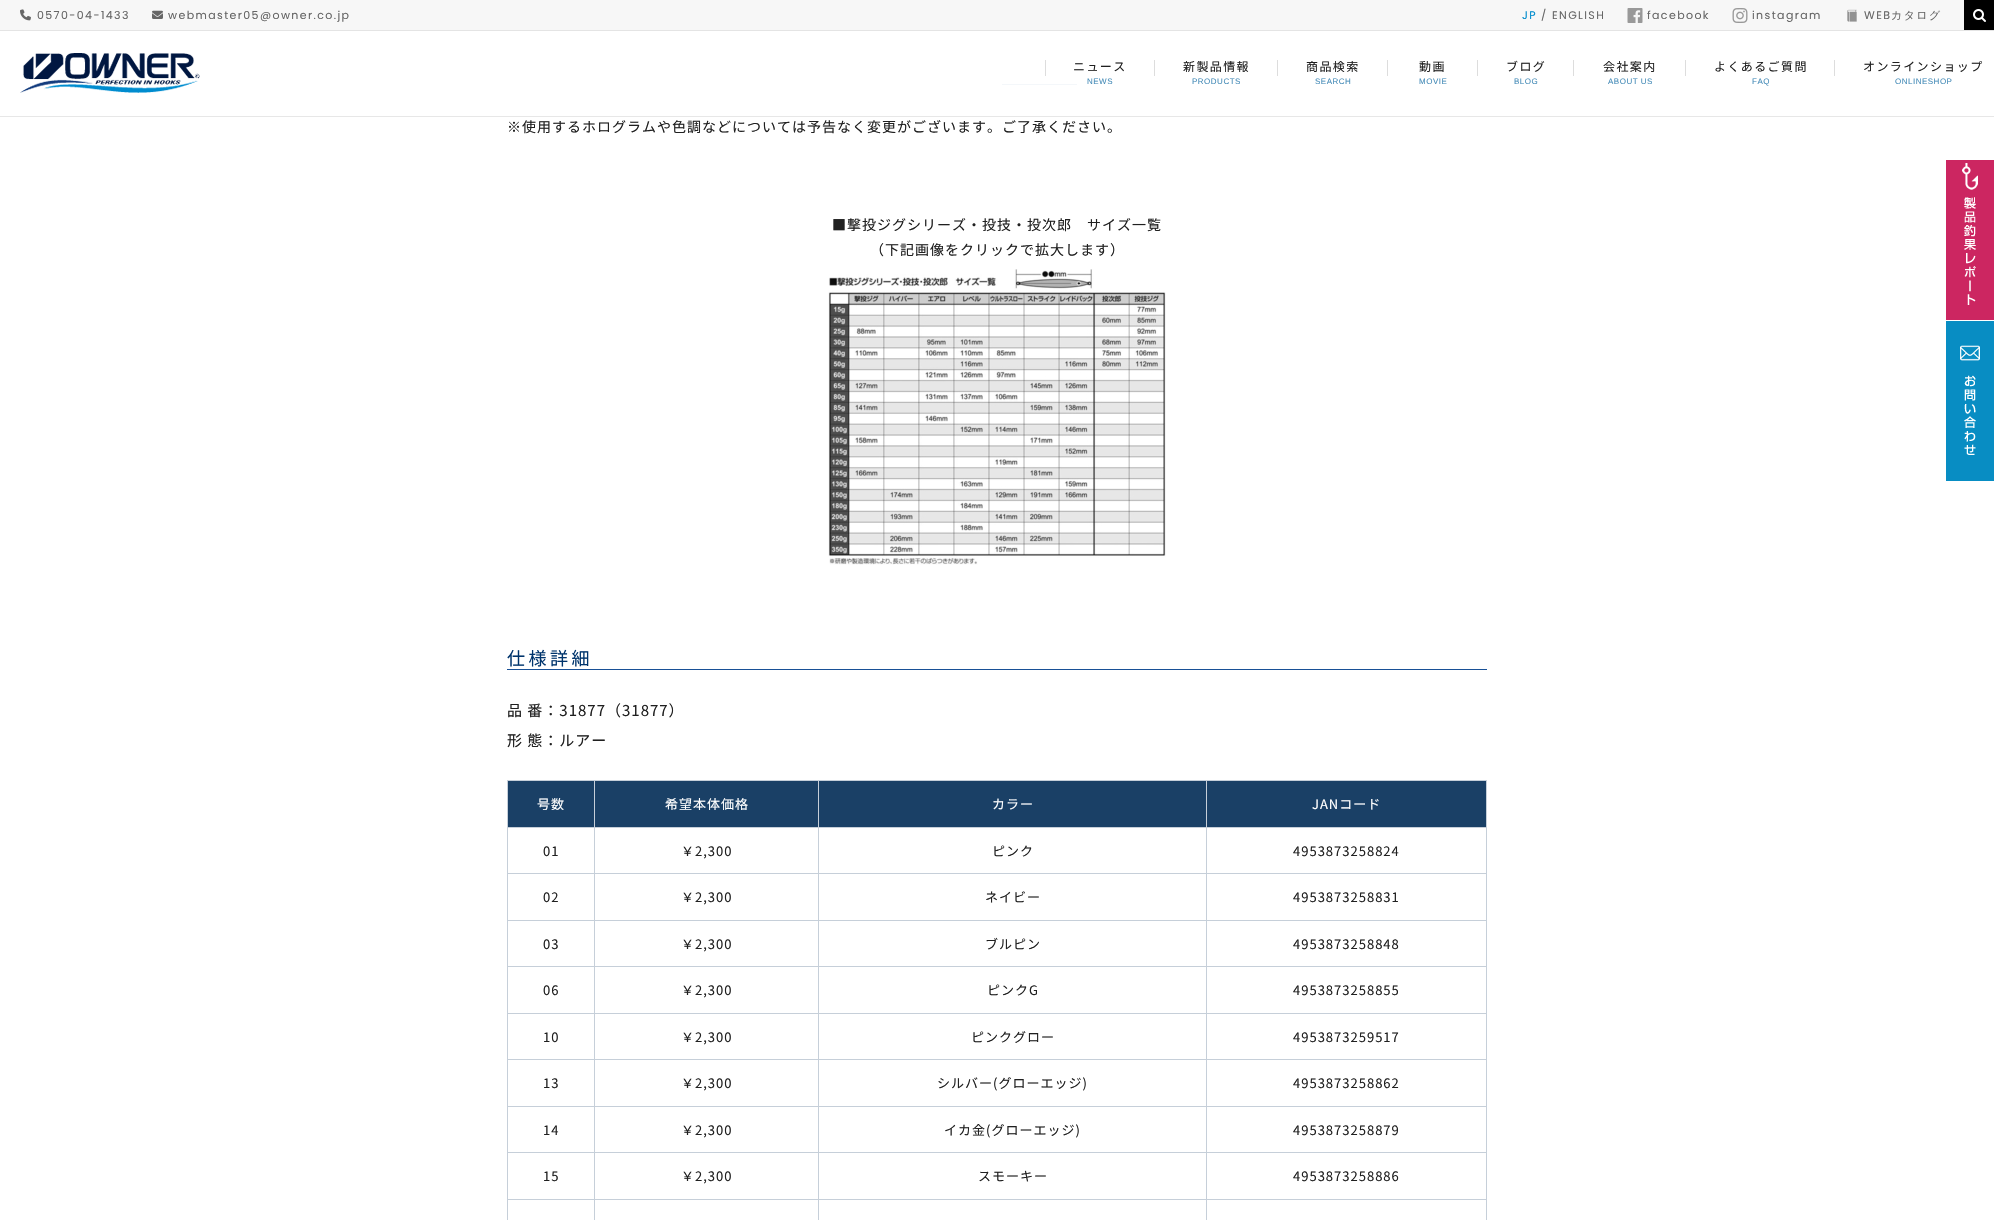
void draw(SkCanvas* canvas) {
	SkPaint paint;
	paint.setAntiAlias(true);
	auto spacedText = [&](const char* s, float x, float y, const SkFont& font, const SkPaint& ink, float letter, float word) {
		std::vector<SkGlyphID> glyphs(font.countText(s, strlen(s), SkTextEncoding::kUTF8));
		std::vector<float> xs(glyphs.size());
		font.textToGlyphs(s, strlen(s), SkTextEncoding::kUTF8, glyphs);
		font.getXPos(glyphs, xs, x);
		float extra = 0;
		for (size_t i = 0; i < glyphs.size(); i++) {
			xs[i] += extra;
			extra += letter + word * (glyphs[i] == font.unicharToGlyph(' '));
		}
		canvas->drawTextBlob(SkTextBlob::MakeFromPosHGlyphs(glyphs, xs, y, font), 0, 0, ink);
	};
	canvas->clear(0xffffffff);
	paint.setColor(0xffe7e7e7);
	canvas->drawRect(SkRect::MakeXYWH(0, 116, 1994, 1), paint);
	paint.setColor(0xfff7f7f7);
	canvas->drawRect(SkRect::MakeXYWH(0, 0, 1964, 30), paint);
	paint.setColor(0xffe4e4e4);
	canvas->drawRect(SkRect::MakeXYWH(0, 30, 1994, 1), paint);
	canvas->drawImageRect(SkImages::DeferredFromEncodedData(SkData::MakeFromFileName("img1.png")), SkRect::MakeXYWH(20, 9, 11, 12), SkSamplingOptions());
	SkFont f1(fontMgr->matchFamilyStyle("Poppins", SkFontStyle::Normal()), 11);
	f1.setSubpixel(true);
	paint.setColor(0xff666666);
	spacedText("0570-04-1433", 37, 19, f1, paint, 1.4, 0);
	canvas->drawImageRect(SkImages::DeferredFromEncodedData(SkData::MakeFromFileName("img2.png")), SkRect::MakeXYWH(152, 10, 11, 9), SkSamplingOptions());
	spacedText("webmaster05@owner.co.jp", 168, 19, f1, paint, 1.4, 0);
	paint.setColor(0xff008ccd);
	spacedText("JP", 1522, 19, f1, paint, 1.4, 0);
	paint.setColor(0xff666666);
	spacedText("/ ENGLISH", 1541, 19, f1, paint, 1.4, 0);
	canvas->drawImageRect(SkImages::DeferredFromEncodedData(SkData::MakeFromFileName("img3.png")), SkRect::MakeXYWH(1627, 8, 16, 15), SkSamplingOptions());
	spacedText("facebook", 1647, 19, f1, paint, 1.4, 0);
	canvas->drawImageRect(SkImages::DeferredFromEncodedData(SkData::MakeFromFileName("img4.png")), SkRect::MakeXYWH(1732, 8, 16, 15), SkSamplingOptions());
	spacedText("instagram", 1752, 19, f1, paint, 1.4, 0);
	canvas->drawImageRect(SkImages::DeferredFromEncodedData(SkData::MakeFromFileName("img5.png")), SkRect::MakeXYWH(1847, 9, 10, 13), SkSamplingOptions());
	spacedText("WEB", 1864, 19, f1, paint, 1.4, 0);
	SkFont f2(fontMgr->matchFamilyStyle("WenQuanYi Zen Hei", SkFontStyle(500, SkFontStyle::kNormal_Width, SkFontStyle::kUpright_Slant)), 11);
	f2.setSubpixel(true);
	spacedText("カタログ", 1891, 19, f2, paint, 1.4, 0);
	paint.setColor(0xff000000);
	canvas->drawRect(SkRect::MakeXYWH(1964, 0, 30, 30), paint);
	canvas->drawImageRect(SkImages::DeferredFromEncodedData(SkData::MakeFromFileName("img6.png")), SkRect::MakeXYWH(1973, 9, 13, 13), SkSamplingOptions());
	canvas->drawImageRect(SkImages::DeferredFromEncodedData(SkData::MakeFromFileName("img7.png")), SkRect::MakeXYWH(20, 53, 180, 40), SkSamplingOptions());
	paint.setColor(0xffdddddd);
	canvas->drawRect(SkRect::MakeXYWH(1045, 60, 1, 16), paint);
	SkFont f3(fontMgr->matchFamilyStyle("Noto Sans JP", SkFontStyle::Normal()), 12);
	f3.setSubpixel(true);
	paint.setColor(0xff202020);
	spacedText("ニュース", 1073, 71, f3, paint, 1.4, 0);
	paint.setColor(0xffdddddd);
	canvas->drawRect(SkRect::MakeXYWH(1154, 60, 1, 16), paint);
	SkFont f4(fontMgr->matchFamilyStyle("Liberation Sans", SkFontStyle::Normal()), 8);
	f4.setSubpixel(true);
	paint.setColor(0xff468cb8);
	spacedText("NEWS", 1087, 84, f4, paint, 0.5, 0);
	paint.setColor(0xff202020);
	spacedText("新製品情報", 1183, 71, f3, paint, 1.4, 0);
	paint.setColor(0xffdddddd);
	canvas->drawRect(SkRect::MakeXYWH(1277, 60, 1, 16), paint);
	paint.setColor(0xff468cb8);
	spacedText("PRODUCTS", 1192, 84, f4, paint, 0.5, 0);
	paint.setColor(0xff202020);
	spacedText("商品検索", 1306, 71, f3, paint, 1.4, 0);
	paint.setColor(0xffdddddd);
	canvas->drawRect(SkRect::MakeXYWH(1387, 60, 1, 16), paint);
	paint.setColor(0xff468cb8);
	spacedText("SEARCH", 1315, 84, f4, paint, 0.5, 0);
	paint.setColor(0xff202020);
	spacedText("動画", 1419, 71, f3, paint, 1.4, 0);
	paint.setColor(0xffdddddd);
	canvas->drawRect(SkRect::MakeXYWH(1477, 60, 1, 16), paint);
	paint.setColor(0xff468cb8);
	spacedText("MOVIE", 1419, 84, f4, paint, 0.5, 0);
	paint.setColor(0xff202020);
	spacedText("ブログ", 1506, 71, f3, paint, 1.4, 0);
	paint.setColor(0xffdddddd);
	canvas->drawRect(SkRect::MakeXYWH(1573, 60, 1, 16), paint);
	paint.setColor(0xff468cb8);
	spacedText("BLOG", 1514, 84, f4, paint, 0.5, 0);
	paint.setColor(0xff202020);
	spacedText("会社案内", 1603, 71, f3, paint, 1.4, 0);
	paint.setColor(0xffdddddd);
	canvas->drawRect(SkRect::MakeXYWH(1685, 60, 1, 16), paint);
	paint.setColor(0xff468cb8);
	spacedText("ABOUT US", 1608, 84, f4, paint, 0.5, 0);
	paint.setColor(0xff202020);
	spacedText("よくあるご質問", 1714, 71, f3, paint, 1.4, 0);
	paint.setColor(0xffdddddd);
	canvas->drawRect(SkRect::MakeXYWH(1834, 60, 1, 16), paint);
	paint.setColor(0xff468cb8);
	spacedText("FAQ", 1752, 84, f4, paint, 0.5, 0);
	paint.setColor(0xff202020);
	spacedText("オンラインショップ", 1863, 71, f3, paint, 1.4, 0);
	paint.setColor(0xff468cb8);
	spacedText("ONLINESHOP", 1895, 84, f4, paint, 0.5, 0);
	paint.setColor(0xfff4f7fa);
	canvas->drawRect(SkRect::MakeXYWH(1002, 84, 75, 1), paint);
	SkFont f5(fontMgr->matchFamilyStyle("Noto Sans JP", SkFontStyle::Normal()), 14);
	f5.setSubpixel(true);
	paint.setColor(0xff202020);
	spacedText("※使用するホログラムや色調などについては予告なく変更がございます。ご了承ください。", 507, 132, f5, paint, 1, 0);
	spacedText("■撃投ジグシリーズ・投技・投次郎　サイズ一覧", 832, 230, f5, paint, 1, 0);
	spacedText("（下記画像をクリックで拡大します）", 870, 255, f5, paint, 1, 0);
	canvas->drawImageRect(SkImages::DeferredFromEncodedData(SkData::MakeFromFileName("img8.png")), SkRect::MakeXYWH(828, 269, 338, 296), SkSamplingOptions());
	paint.setColor(0xff185096);
	canvas->drawRect(SkRect::MakeXYWH(507, 669, 980, 1), paint);
	SkFont f6(fontMgr->matchFamilyStyle("Noto Sans JP", SkFontStyle::Normal()), 18);
	f6.setSubpixel(true);
	paint.setColor(0xff00346c);
	spacedText("仕様詳細", 507, 665, f6, paint, 3.5, 0);
	SkFont f7(fontMgr->matchFamilyStyle("Noto Sans JP", SkFontStyle::Normal()), 15);
	f7.setSubpixel(true);
	paint.setColor(0xff202020);
	spacedText("品 番：31877（31877）", 507, 716, f7, paint, 1, 0);
	spacedText("形 態：ルアー", 507, 746, f7, paint, 1, 0);
	paint.setColor(0xff1a4066);
	canvas->drawRect(SkRect::MakeXYWH(508, 781, 86, 46), paint);
	paint.setColor(0xffc6cfd9);
	canvas->drawRect(SkRect::MakeXYWH(1206, 780, 281, 1), paint);
	canvas->drawRect(SkRect::MakeXYWH(1206, 827, 281, 1), paint);
	canvas->drawRect(SkRect::MakeXYWH(1206, 873, 281, 1), paint);
	canvas->drawRect(SkRect::MakeXYWH(1206, 920, 281, 1), paint);
	canvas->drawRect(SkRect::MakeXYWH(1206, 966, 281, 1), paint);
	canvas->drawRect(SkRect::MakeXYWH(1206, 1013, 281, 1), paint);
	canvas->drawRect(SkRect::MakeXYWH(1206, 1059, 281, 1), paint);
	canvas->drawRect(SkRect::MakeXYWH(1206, 1106, 281, 1), paint);
	canvas->drawRect(SkRect::MakeXYWH(1206, 1152, 281, 1), paint);
	canvas->drawRect(SkRect::MakeXYWH(1206, 1199, 281, 1), paint);
	canvas->drawRect(SkRect::MakeXYWH(1206, 1199, 1, 21), paint);
	canvas->drawRect(SkRect::MakeXYWH(818, 1199, 389, 1), paint);
	canvas->drawRect(SkRect::MakeXYWH(1206, 1152, 1, 48), paint);
	canvas->drawRect(SkRect::MakeXYWH(818, 1152, 389, 1), paint);
	canvas->drawRect(SkRect::MakeXYWH(1206, 1106, 1, 47), paint);
	canvas->drawRect(SkRect::MakeXYWH(818, 1106, 389, 1), paint);
	canvas->drawRect(SkRect::MakeXYWH(1206, 1059, 1, 48), paint);
	canvas->drawRect(SkRect::MakeXYWH(818, 1059, 389, 1), paint);
	canvas->drawRect(SkRect::MakeXYWH(1206, 1013, 1, 47), paint);
	canvas->drawRect(SkRect::MakeXYWH(818, 1013, 389, 1), paint);
	canvas->drawRect(SkRect::MakeXYWH(1206, 966, 1, 48), paint);
	canvas->drawRect(SkRect::MakeXYWH(818, 966, 389, 1), paint);
	canvas->drawRect(SkRect::MakeXYWH(1206, 920, 1, 47), paint);
	canvas->drawRect(SkRect::MakeXYWH(818, 920, 389, 1), paint);
	canvas->drawRect(SkRect::MakeXYWH(1206, 873, 1, 48), paint);
	canvas->drawRect(SkRect::MakeXYWH(818, 873, 389, 1), paint);
	canvas->drawRect(SkRect::MakeXYWH(1206, 827, 1, 47), paint);
	canvas->drawRect(SkRect::MakeXYWH(818, 827, 389, 1), paint);
	canvas->drawRect(SkRect::MakeXYWH(1206, 780, 1, 48), paint);
	canvas->drawRect(SkRect::MakeXYWH(818, 780, 389, 1), paint);
	canvas->drawRect(SkRect::MakeXYWH(818, 1199, 1, 21), paint);
	canvas->drawRect(SkRect::MakeXYWH(594, 1199, 225, 1), paint);
	canvas->drawRect(SkRect::MakeXYWH(818, 1152, 1, 48), paint);
	canvas->drawRect(SkRect::MakeXYWH(594, 1152, 225, 1), paint);
	canvas->drawRect(SkRect::MakeXYWH(818, 1106, 1, 47), paint);
	canvas->drawRect(SkRect::MakeXYWH(594, 1106, 225, 1), paint);
	canvas->drawRect(SkRect::MakeXYWH(818, 1059, 1, 48), paint);
	canvas->drawRect(SkRect::MakeXYWH(594, 1059, 225, 1), paint);
	canvas->drawRect(SkRect::MakeXYWH(818, 1013, 1, 47), paint);
	canvas->drawRect(SkRect::MakeXYWH(594, 1013, 225, 1), paint);
	canvas->drawRect(SkRect::MakeXYWH(818, 966, 1, 48), paint);
	canvas->drawRect(SkRect::MakeXYWH(594, 966, 225, 1), paint);
	canvas->drawRect(SkRect::MakeXYWH(818, 920, 1, 47), paint);
	canvas->drawRect(SkRect::MakeXYWH(594, 920, 225, 1), paint);
	canvas->drawRect(SkRect::MakeXYWH(818, 873, 1, 48), paint);
	canvas->drawRect(SkRect::MakeXYWH(594, 873, 225, 1), paint);
	canvas->drawRect(SkRect::MakeXYWH(818, 827, 1, 47), paint);
	canvas->drawRect(SkRect::MakeXYWH(594, 827, 225, 1), paint);
	canvas->drawRect(SkRect::MakeXYWH(818, 780, 1, 48), paint);
	canvas->drawRect(SkRect::MakeXYWH(594, 780, 225, 1), paint);
	canvas->drawRect(SkRect::MakeXYWH(594, 1199, 1, 21), paint);
	canvas->drawRect(SkRect::MakeXYWH(507, 1199, 88, 1), paint);
	canvas->drawRect(SkRect::MakeXYWH(594, 1152, 1, 48), paint);
	canvas->drawRect(SkRect::MakeXYWH(507, 1152, 88, 1), paint);
	canvas->drawRect(SkRect::MakeXYWH(594, 1106, 1, 47), paint);
	canvas->drawRect(SkRect::MakeXYWH(507, 1106, 88, 1), paint);
	canvas->drawRect(SkRect::MakeXYWH(594, 1059, 1, 48), paint);
	canvas->drawRect(SkRect::MakeXYWH(507, 1059, 88, 1), paint);
	canvas->drawRect(SkRect::MakeXYWH(594, 1013, 1, 47), paint);
	canvas->drawRect(SkRect::MakeXYWH(507, 1013, 88, 1), paint);
	canvas->drawRect(SkRect::MakeXYWH(594, 966, 1, 48), paint);
	canvas->drawRect(SkRect::MakeXYWH(507, 966, 88, 1), paint);
	canvas->drawRect(SkRect::MakeXYWH(594, 920, 1, 47), paint);
	canvas->drawRect(SkRect::MakeXYWH(507, 920, 88, 1), paint);
	canvas->drawRect(SkRect::MakeXYWH(594, 873, 1, 48), paint);
	canvas->drawRect(SkRect::MakeXYWH(507, 873, 88, 1), paint);
	canvas->drawRect(SkRect::MakeXYWH(594, 827, 1, 47), paint);
	canvas->drawRect(SkRect::MakeXYWH(507, 827, 88, 1), paint);
	canvas->drawRect(SkRect::MakeXYWH(594, 780, 1, 48), paint);
	canvas->drawRect(SkRect::MakeXYWH(507, 780, 88, 1), paint);
	canvas->drawRect(SkRect::MakeXYWH(507, 1199, 1, 21), paint);
	canvas->drawRect(SkRect::MakeXYWH(507, 1152, 1, 48), paint);
	canvas->drawRect(SkRect::MakeXYWH(507, 1106, 1, 47), paint);
	canvas->drawRect(SkRect::MakeXYWH(507, 1059, 1, 48), paint);
	canvas->drawRect(SkRect::MakeXYWH(507, 1013, 1, 47), paint);
	canvas->drawRect(SkRect::MakeXYWH(507, 966, 1, 48), paint);
	canvas->drawRect(SkRect::MakeXYWH(507, 920, 1, 47), paint);
	canvas->drawRect(SkRect::MakeXYWH(507, 873, 1, 48), paint);
	canvas->drawRect(SkRect::MakeXYWH(507, 827, 1, 47), paint);
	canvas->drawRect(SkRect::MakeXYWH(507, 780, 1, 48), paint);
	SkFont f8(fontMgr->matchFamilyStyle("Noto Sans JP", SkFontStyle::Normal()), 13);
	f8.setSubpixel(true);
	paint.setColor(0xffffffff);
	spacedText("号数", 537, 809, f8, paint, 1, 0);
	paint.setColor(0xff1a4066);
	canvas->drawRect(SkRect::MakeXYWH(595, 781, 223, 46), paint);
	paint.setColor(0xffffffff);
	spacedText("希望本体価格", 665, 809, f8, paint, 1, 0);
	paint.setColor(0xff1a4066);
	canvas->drawRect(SkRect::MakeXYWH(819, 781, 387, 46), paint);
	paint.setColor(0xffffffff);
	spacedText("カラー", 992, 809, f8, paint, 1, 0);
	paint.setColor(0xff1a4066);
	canvas->drawRect(SkRect::MakeXYWH(1207, 781, 279, 46), paint);
	paint.setColor(0xffc6cfd9);
	canvas->drawRect(SkRect::MakeXYWH(1486, 1199, 1, 21), paint);
	canvas->drawRect(SkRect::MakeXYWH(1486, 1152, 1, 48), paint);
	canvas->drawRect(SkRect::MakeXYWH(1486, 1106, 1, 47), paint);
	canvas->drawRect(SkRect::MakeXYWH(1486, 1059, 1, 48), paint);
	canvas->drawRect(SkRect::MakeXYWH(1486, 1013, 1, 47), paint);
	canvas->drawRect(SkRect::MakeXYWH(1486, 966, 1, 48), paint);
	canvas->drawRect(SkRect::MakeXYWH(1486, 920, 1, 47), paint);
	canvas->drawRect(SkRect::MakeXYWH(1486, 873, 1, 48), paint);
	canvas->drawRect(SkRect::MakeXYWH(1486, 827, 1, 47), paint);
	canvas->drawRect(SkRect::MakeXYWH(1486, 780, 1, 48), paint);
	paint.setColor(0xffffffff);
	spacedText("JANコード", 1312, 809, f8, paint, 1, 0);
	paint.setColor(0xff202020);
	spacedText("01", 543, 856, f8, paint, 1, 0);
	spacedText("￥2,300", 681, 856, f8, paint, 1, 0);
	spacedText("ピンク", 992, 856, f8, paint, 1, 0);
	spacedText("4953873258824", 1293, 856, f8, paint, 1, 0);
	spacedText("02", 543, 902, f8, paint, 1, 0);
	spacedText("￥2,300", 681, 902, f8, paint, 1, 0);
	spacedText("ネイビー", 985, 902, f8, paint, 1, 0);
	spacedText("4953873258831", 1293, 902, f8, paint, 1, 0);
	spacedText("03", 543, 949, f8, paint, 1, 0);
	spacedText("￥2,300", 681, 949, f8, paint, 1, 0);
	spacedText("ブルピン", 985, 949, f8, paint, 1, 0);
	spacedText("4953873258848", 1293, 949, f8, paint, 1, 0);
	spacedText("06", 543, 995, f8, paint, 1, 0);
	spacedText("￥2,300", 681, 995, f8, paint, 1, 0);
	spacedText("ピンクG", 987, 995, f8, paint, 1, 0);
	spacedText("4953873258855", 1293, 995, f8, paint, 1, 0);
	spacedText("10", 543, 1042, f8, paint, 1, 0);
	spacedText("￥2,300", 681, 1042, f8, paint, 1, 0);
	spacedText("ピンクグロー", 971, 1042, f8, paint, 1, 0);
	spacedText("4953873259517", 1293, 1042, f8, paint, 1, 0);
	spacedText("13", 543, 1088, f8, paint, 1, 0);
	spacedText("￥2,300", 681, 1088, f8, paint, 1, 0);
	spacedText("シルバー(グローエッジ)", 937, 1088, f8, paint, 1, 0);
	spacedText("4953873258862", 1293, 1088, f8, paint, 1, 0);
	spacedText("14", 543, 1135, f8, paint, 1, 0);
	spacedText("￥2,300", 681, 1135, f8, paint, 1, 0);
	spacedText("イカ金(グローエッジ)", 944, 1135, f8, paint, 1, 0);
	spacedText("4953873258879", 1293, 1135, f8, paint, 1, 0);
	spacedText("15", 543, 1181, f8, paint, 1, 0);
	spacedText("￥2,300", 681, 1181, f8, paint, 1, 0);
	spacedText("スモーキー", 978, 1181, f8, paint, 1, 0);
	spacedText("4953873258886", 1293, 1181, f8, paint, 1, 0);
	canvas->drawImageRect(SkImages::DeferredFromEncodedData(SkData::MakeFromFileName("img9.png")), SkRect::MakeXYWH(1946, 160, 48, 160), SkSamplingOptions());
	canvas->drawImageRect(SkImages::DeferredFromEncodedData(SkData::MakeFromFileName("img10.png")), SkRect::MakeXYWH(1946, 321, 48, 160), SkSamplingOptions());
}
